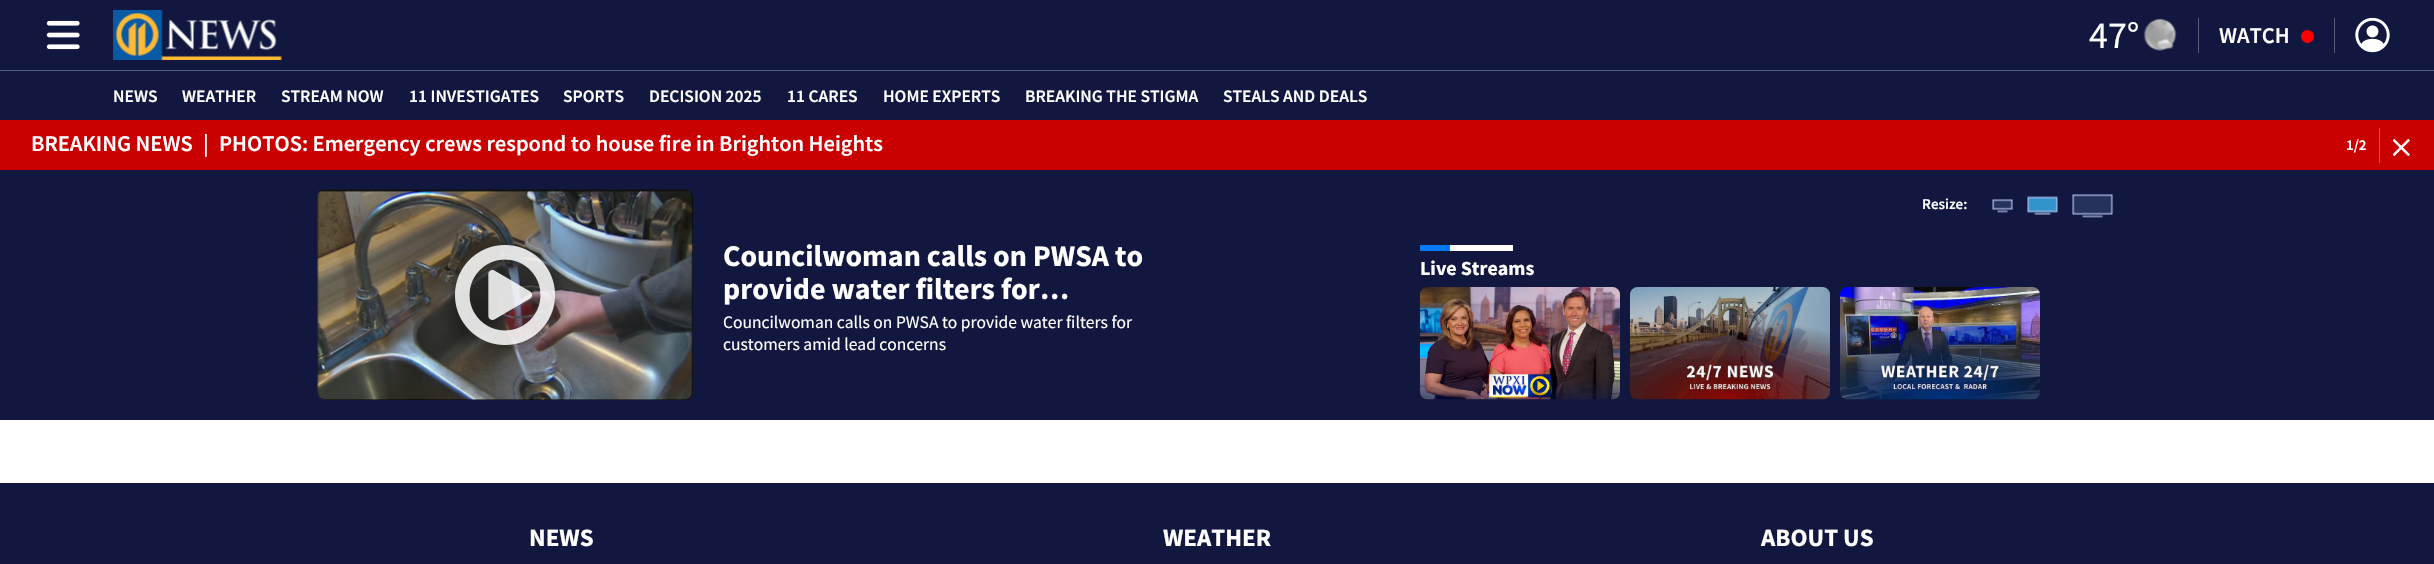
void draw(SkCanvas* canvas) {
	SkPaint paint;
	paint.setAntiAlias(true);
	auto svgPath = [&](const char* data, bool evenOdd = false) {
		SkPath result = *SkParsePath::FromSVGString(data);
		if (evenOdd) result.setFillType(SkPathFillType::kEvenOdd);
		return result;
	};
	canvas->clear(0xffffffff);
	paint.setColor(0xff11173e);
	canvas->drawRect(SkRect::MakeXYWH(0, 0, 2434, 70), paint);
	canvas->drawImageRect(SkImages::DeferredFromEncodedData(SkData::MakeFromFileName("img1.png")), SkRect::MakeXYWH(46, 20, 34, 30), SkSamplingOptions());
	canvas->drawImageRect(SkImages::DeferredFromEncodedData(SkData::MakeFromFileName("img2.png")), SkRect::MakeXYWH(113, 10, 169, 50), SkSamplingOptions());
	SkFont f1(fontMgr->matchFamilyStyle("Source Sans Pro", SkFontStyle::Normal()), 38);
	f1.setSubpixel(true);
	paint.setColor(0xffffffff);
	canvas->drawString("47°", 2089, 48, f1, paint);
	canvas->drawImageRect(SkImages::DeferredFromEncodedData(SkData::MakeFromFileName("img3.png")), SkRect::MakeXYWH(2143, 18, 34, 33), SkSamplingOptions());
	paint.setColor(0xff585d78);
	canvas->drawRect(SkRect::MakeXYWH(2198, 18, 1, 35), paint);
	SkFont f2(fontMgr->matchFamilyStyle("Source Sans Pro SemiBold", SkFontStyle(600, SkFontStyle::kNormal_Width, SkFontStyle::kUpright_Slant)), 22.5);
	f2.setSubpixel(true);
	paint.setColor(0xffffffff);
	canvas->drawString("WATCH", 2219, 43, f2, paint);
	paint.setColor(0xffff0000);
	canvas->drawCircle(2307.5, 36.5, 6.5, paint);
	paint.setColor(0xff585d78);
	canvas->drawRect(SkRect::MakeXYWH(2334, 18, 1, 35), paint);
	canvas->drawImageRect(SkImages::DeferredFromEncodedData(SkData::MakeFromFileName("img4.png")), SkRect::MakeXYWH(2355, 18, 35, 35), SkSamplingOptions());
	paint.setColor(0xff11173e);
	canvas->drawRect(SkRect::MakeXYWH(0, 71, 2434, 49), paint);
	paint.setColor(0xff4b5d78);
	canvas->drawRect(SkRect::MakeXYWH(0, 70, 2434, 1), paint);
	SkFont f3(fontMgr->matchFamilyStyle("Source Sans Pro SemiBold", SkFontStyle(600, SkFontStyle::kNormal_Width, SkFontStyle::kUpright_Slant)), 17.5);
	f3.setSubpixel(true);
	paint.setColor(0xffffffff);
	canvas->drawString("NEWS", 113, 102, f3, paint);
	canvas->drawString("WEATHER", 182, 102, f3, paint);
	canvas->drawString("STREAM NOW", 281, 102, f3, paint);
	canvas->drawString("11 INVESTIGATES", 409, 102, f3, paint);
	canvas->drawString("SPORTS", 563, 102, f3, paint);
	canvas->drawString("DECISION 2025", 649, 102, f3, paint);
	canvas->drawString("11 CARES", 787, 102, f3, paint);
	canvas->drawString("HOME EXPERTS", 883, 102, f3, paint);
	canvas->drawString("BREAKING THE STIGMA", 1025, 102, f3, paint);
	canvas->drawString("STEALS AND DEALS", 1223, 102, f3, paint);
	paint.setColor(0xffca0101);
	canvas->drawRect(SkRect::MakeXYWH(0, 120, 2434, 50), paint);
	paint.setColor(0xffffffff);
	canvas->drawString("BREAKING NEWS", 31, 151, f2, paint);
	canvas->drawString("|", 203, 151, f2, paint);
	canvas->drawString("PHOTOS: Emergency crews respond to house fire in Brighton Heights", 219, 151, f2, paint);
	SkFont f4(fontMgr->matchFamilyStyle("Source Sans Pro SemiBold", SkFontStyle(600, SkFontStyle::kNormal_Width, SkFontStyle::kUpright_Slant)), 15);
	f4.setSubpixel(true);
	canvas->drawString("1/2", 2346, 150, f4, paint);
	paint.setColor(0xffda4d4d);
	canvas->drawRect(SkRect::MakeXYWH(2379, 128, 1, 35), paint);
	canvas->drawImageRect(SkImages::DeferredFromEncodedData(SkData::MakeFromFileName("img5.png")), SkRect::MakeXYWH(2393, 139, 17, 17), SkSamplingOptions());
	paint.setColor(0xff11173e);
	canvas->drawRect(SkRect::MakeXYWH(0, 170, 2434, 250), paint);
	paint.setColor(0xff000000);
	canvas->drawRoundRect(SkRect::MakeXYWH(318, 190, 375, 210), 8, 8, paint);
	canvas->drawImageRect(SkImages::DeferredFromEncodedData(SkData::MakeFromFileName("img6.png")), SkRect::MakeXYWH(317, 189, 376, 211), SkSamplingOptions());
	canvas->save();
	canvas->clipPath(svgPath("M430 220H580V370H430ZM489 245H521C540 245 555 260 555 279V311C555 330 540 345 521 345H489C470 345 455 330 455 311V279C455 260 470 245 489 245Z", true), true);
	paint.setColor(0x36000000);
	paint.setMaskFilter(SkMaskFilter::MakeBlur(kNormal_SkBlurStyle, 6));
	canvas->drawRoundRect(SkRect::MakeXYWH(449, 239, 112, 112), 40, 40, paint);
	paint.setMaskFilter(nullptr);
	canvas->restore();
	canvas->drawRoundRect(SkRect::MakeXYWH(455, 245, 100, 100), 34, 34, paint);
	canvas->drawImageRect(SkImages::DeferredFromEncodedData(SkData::MakeFromFileName("img7.png")), SkRect::MakeXYWH(455, 245, 100, 100), SkSamplingOptions());
	paint.setColor(0xffffffff);
	canvas->drawString("Resize:", 1922, 209, f4, paint);
	canvas->drawImageRect(SkImages::DeferredFromEncodedData(SkData::MakeFromFileName("img8.png")), SkRect::MakeXYWH(1992, 199, 21, 14), SkSamplingOptions());
	canvas->drawImageRect(SkImages::DeferredFromEncodedData(SkData::MakeFromFileName("img9.png")), SkRect::MakeXYWH(2027, 196, 31, 19), SkSamplingOptions());
	canvas->drawImageRect(SkImages::DeferredFromEncodedData(SkData::MakeFromFileName("img10.png")), SkRect::MakeXYWH(2072, 194, 41, 24), SkSamplingOptions());
	SkFont f5(fontMgr->matchFamilyStyle("Source Sans Pro", SkFontStyle::Bold()), 30);
	f5.setSubpixel(true);
	canvas->drawString("Councilwoman calls on PWSA to", 723, 266, f5, paint);
	canvas->drawString("provide water filters for…", 723, 299, f5, paint);
	SkFont f6(fontMgr->matchFamilyStyle("Source Sans Pro", SkFontStyle::Normal()), 17.5);
	f6.setSubpixel(true);
	canvas->drawString("Councilwoman calls on PWSA to provide water filters for", 723, 328, f6, paint);
	canvas->drawString("customers amid lead concerns", 723, 350, f6, paint);
	canvas->drawRect(SkRect::MakeXYWH(1450, 245, 63, 6), paint);
	paint.setColor(0xff0079ff);
	canvas->drawRect(SkRect::MakeXYWH(1420, 245, 30, 6), paint);
	SkFont f7(fontMgr->matchFamilyStyle("Source Sans Pro", SkFontStyle::Bold()), 20);
	f7.setSubpixel(true);
	paint.setColor(0xffffffff);
	canvas->drawString("Live Streams", 1420, 275, f7, paint);
	canvas->drawImageRect(SkImages::DeferredFromEncodedData(SkData::MakeFromFileName("img11.png")), SkRect::MakeXYWH(1420, 287, 200, 113), SkSamplingOptions());
	canvas->drawImageRect(SkImages::DeferredFromEncodedData(SkData::MakeFromFileName("img12.png")), SkRect::MakeXYWH(1630, 287, 200, 113), SkSamplingOptions());
	canvas->drawImageRect(SkImages::DeferredFromEncodedData(SkData::MakeFromFileName("img13.png")), SkRect::MakeXYWH(1840, 287, 200, 113), SkSamplingOptions());
	paint.setColor(0xff11173e);
	canvas->drawRect(SkRect::MakeXYWH(0, 483, 2434, 81), paint);
	SkFont f8(fontMgr->matchFamilyStyle("Source Sans Pro", SkFontStyle::Bold()), 25);
	f8.setSubpixel(true);
	paint.setColor(0xffffffff);
	canvas->drawString("NEWS", 529, 546, f8, paint);
	canvas->drawString("WEATHER", 1163, 546, f8, paint);
	canvas->drawString("ABOUT US", 1761, 546, f8, paint);
}
